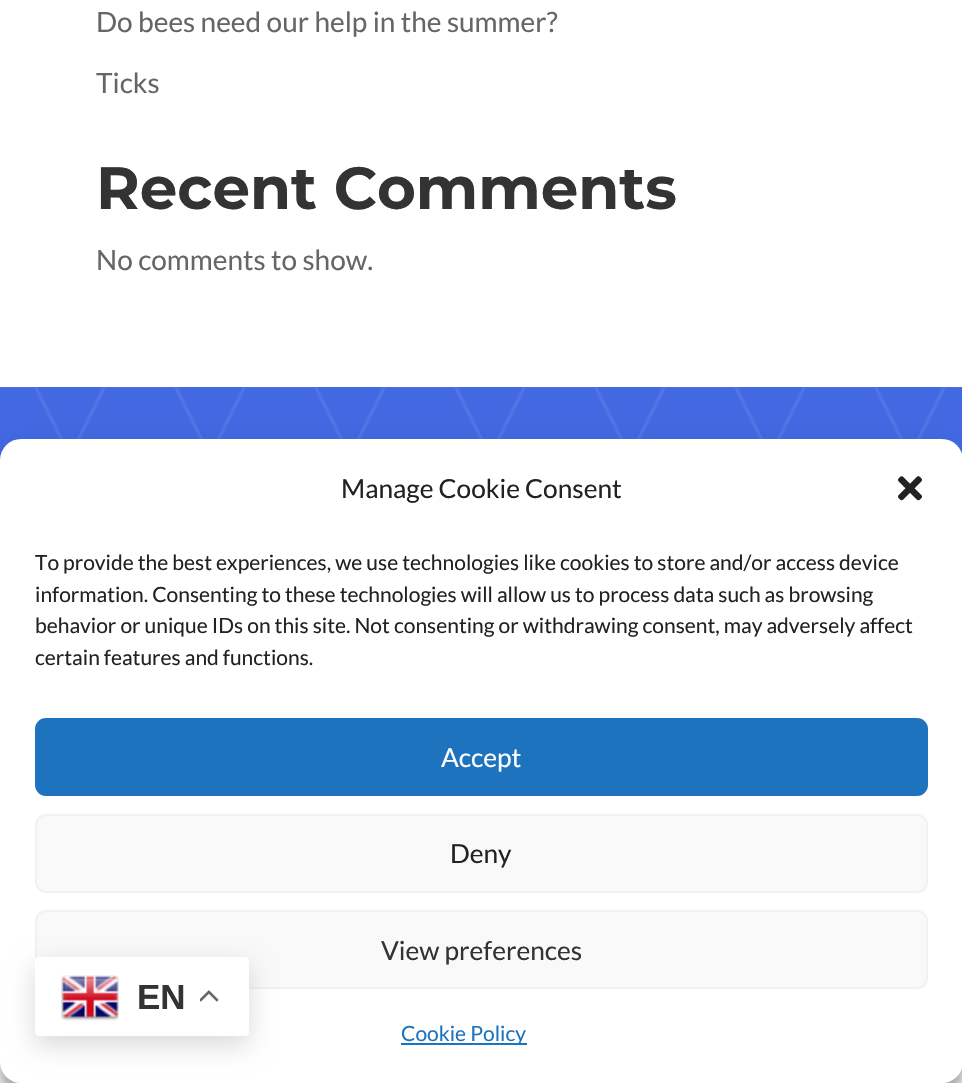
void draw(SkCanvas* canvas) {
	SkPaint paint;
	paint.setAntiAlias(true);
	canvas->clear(0xffffffff);
	SkFont f1(fontMgr->matchFamilyStyle("Lato", SkFontStyle::Normal()), 28);
	f1.setSubpixel(true);
	paint.setColor(0xff666666);
	canvas->drawString("Do bees need our help in the summer?", 96, 32, f1, paint);
	canvas->drawString("Ticks", 96, 93, f1, paint);
	SkFont f2(fontMgr->matchFamilyStyle("Montserrat", SkFontStyle::Bold()), 59.5);
	f2.setSubpixel(true);
	paint.setColor(0xff333333);
	canvas->drawString("Recent Comments", 96, 209, f2, paint);
	paint.setColor(0xff666666);
	canvas->drawString("No comments to show.", 96, 270, f1, paint);
	paint.setColor(0xff4269e2);
	canvas->drawRect(SkRect::MakeXYWH(0, 387, 962, 73), paint);
	canvas->drawImageRect(SkImages::DeferredFromEncodedData(SkData::MakeFromFileName("img1.png")), SkRect::MakeXYWH(0, 387, 962, 52), SkSamplingOptions());
	paint.setColor(0x3b000000);
	paint.setMaskFilter(SkMaskFilter::MakeBlur(kNormal_SkBlurStyle, 5));
	canvas->drawRoundRect(SkRect::MakeXYWH(0, 450, 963, 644), 21, 21, paint);
	paint.setMaskFilter(nullptr);
	paint.setColor(0x30000000);
	paint.setMaskFilter(SkMaskFilter::MakeBlur(kNormal_SkBlurStyle, 17.5));
	canvas->drawRoundRect(SkRect::MakeXYWH(0, 457, 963, 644), 21, 21, paint);
	paint.setMaskFilter(nullptr);
	paint.setColor(0xffffffff);
	canvas->drawRoundRect(SkRect::MakeXYWH(0, 439, 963, 644), 21, 21, paint);
	SkFont f3(fontMgr->matchFamilyStyle("Lato", SkFontStyle::Normal()), 26.25);
	f3.setSubpixel(true);
	paint.setColor(0xff222222);
	canvas->drawString("Manage Cookie Consent", 341, 498, f3, paint);
	canvas->drawImageRect(SkImages::DeferredFromEncodedData(SkData::MakeFromFileName("img2.png")), SkRect::MakeXYWH(898, 476, 24, 25), SkSamplingOptions());
	SkFont f4(fontMgr->matchFamilyStyle("Lato", SkFontStyle::Normal()), 21);
	f4.setSubpixel(true);
	canvas->drawString("To provide the best experiences, we use technologies like cookies to store and/or access device", 35, 570, f4, paint);
	canvas->drawString("information. Consenting to these technologies will allow us to process data such as browsing", 35, 602, f4, paint);
	canvas->drawString("behavior or unique IDs on this site. Not consenting or withdrawing consent, may adversely affect", 35, 633, f4, paint);
	canvas->drawString("certain features and functions.", 35, 665, f4, paint);
	paint.setColor(0xff1e73be);
	canvas->drawRoundRect(SkRect::MakeXYWH(36, 719, 891, 76), 10, 10, paint);
	paint.setStroke(true);
	paint.setStrokeWidth(2);
	canvas->drawRoundRect(SkRect::MakeXYWH(36, 719, 891, 76), 10, 10, paint);
	paint.setStroke(false);
	paint.setColor(0xffffffff);
	canvas->drawString("Accept", 441, 767, f3, paint);
	paint.setColor(0xfff9f9f9);
	canvas->drawRoundRect(SkRect::MakeXYWH(36, 815, 891, 77), 10, 10, paint);
	paint.setStroke(true);
	paint.setColor(0xfff2f2f2);
	canvas->drawRoundRect(SkRect::MakeXYWH(36, 815, 891, 77), 10, 10, paint);
	paint.setStroke(false);
	paint.setColor(0xff222222);
	canvas->drawString("Deny", 450, 863, f3, paint);
	paint.setColor(0xfff9f9f9);
	canvas->drawRoundRect(SkRect::MakeXYWH(36, 911, 891, 77), 10, 10, paint);
	paint.setStroke(true);
	paint.setColor(0xfff2f2f2);
	canvas->drawRoundRect(SkRect::MakeXYWH(36, 911, 891, 77), 10, 10, paint);
	paint.setStroke(false);
	paint.setColor(0xff333333);
	canvas->drawString("View preferences", 381, 960, f3, paint);
	paint.setColor(0xff1e73be);
	canvas->drawRect(SkRect::MakeXYWH(401, 1043, 126, 2), paint);
	canvas->drawString("Cookie Policy", 401, 1041, f4, paint);
	paint.setColor(0x26000000);
	paint.setMaskFilter(SkMaskFilter::MakeBlur(kNormal_SkBlurStyle, 13));
	canvas->drawRoundRect(SkRect::MakeXYWH(35, 966, 214, 79), 4, 4, paint);
	paint.setMaskFilter(nullptr);
	paint.setColor(0xffffffff);
	canvas->drawRoundRect(SkRect::MakeXYWH(35, 957, 214, 79), 4, 4, paint);
	canvas->drawImageRect(SkImages::DeferredFromEncodedData(SkData::MakeFromFileName("img3.png")), SkRect::MakeXYWH(61, 975, 58, 46), SkSamplingOptions());
	SkFont f5(fontMgr->matchFamilyStyle("Liberation Sans", SkFontStyle::Bold()), 35);
	f5.setSubpixel(true);
	paint.setColor(0xff333333);
	canvas->drawString("EN", 137, 1009, f5, paint);
	canvas->drawImageRect(SkImages::DeferredFromEncodedData(SkData::MakeFromFileName("img4.png")), SkRect::MakeXYWH(200, 990, 19, 12), SkSamplingOptions());
}
